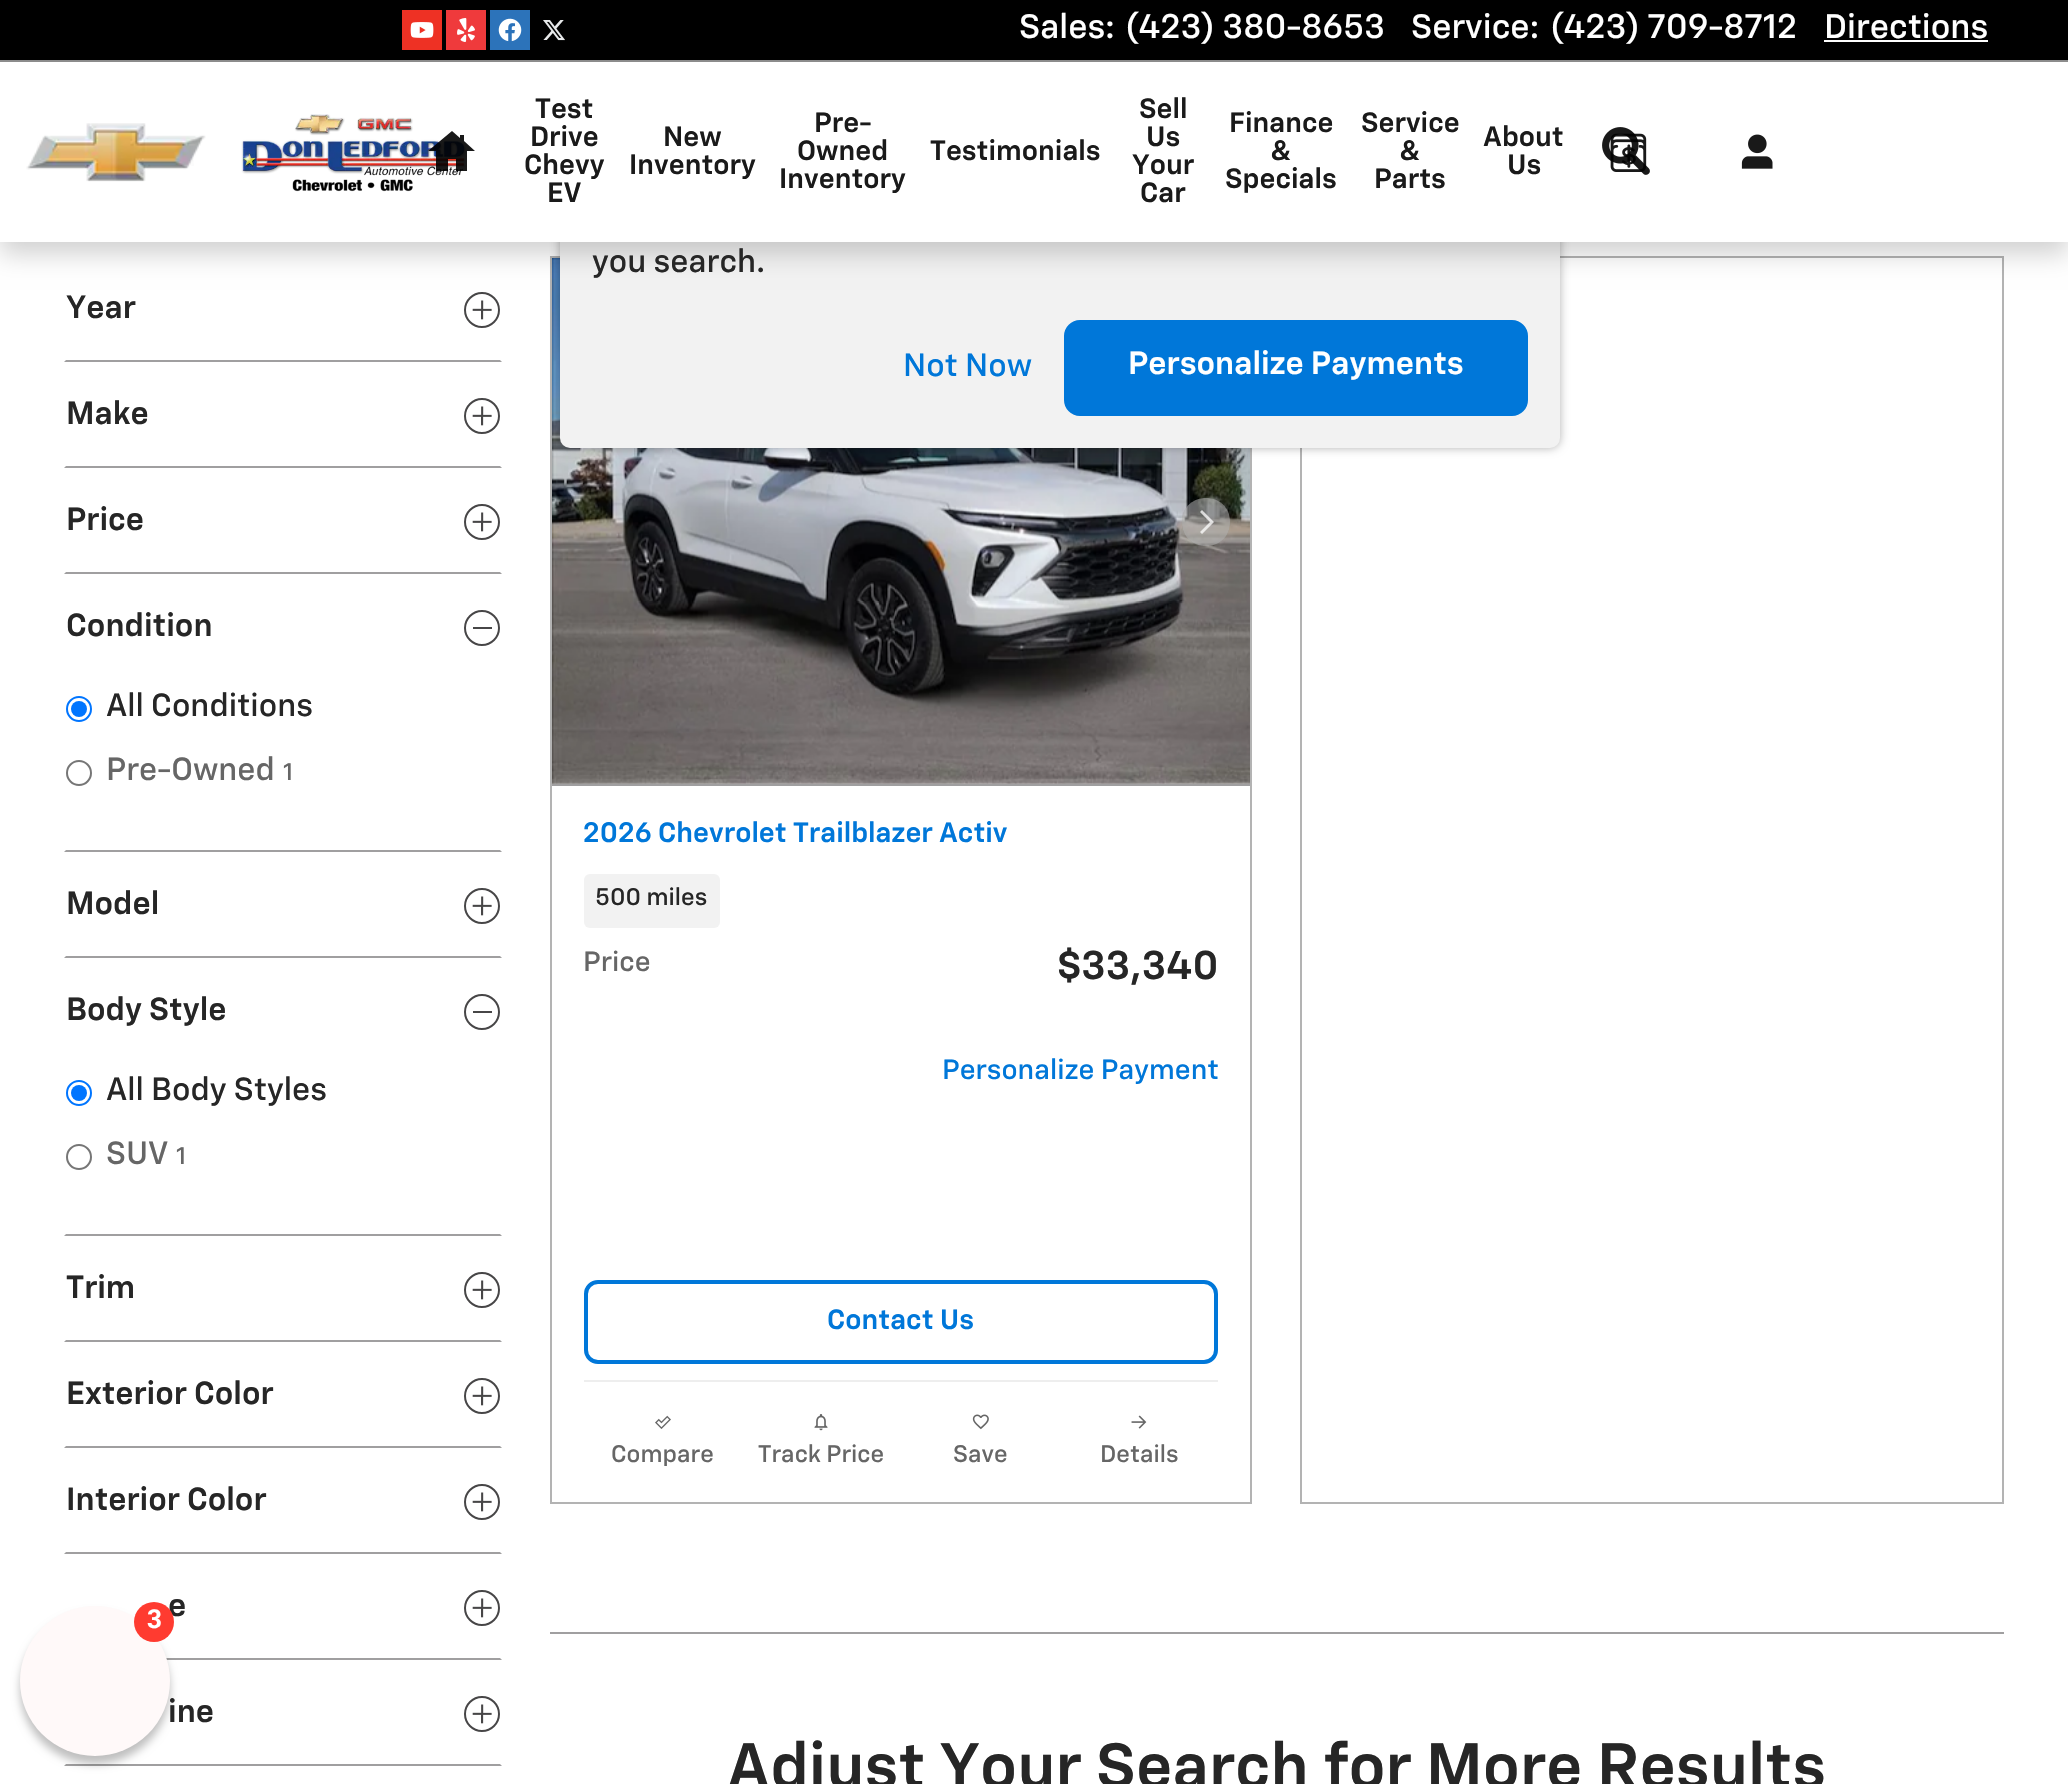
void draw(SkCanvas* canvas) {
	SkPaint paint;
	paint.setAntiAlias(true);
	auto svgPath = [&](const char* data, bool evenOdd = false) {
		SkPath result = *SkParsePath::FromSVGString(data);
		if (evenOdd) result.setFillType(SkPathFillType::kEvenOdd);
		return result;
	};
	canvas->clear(0xffffffff);
	paint.setStroke(true);
	paint.setStrokeWidth(2);
	paint.setColor(0xffb3b3b3);
	canvas->drawRect(SkRect::MakeXYWH(551, 257, 700, 1246), paint);
	canvas->drawImageRect(SkImages::DeferredFromEncodedData(SkData::MakeFromFileName("img12.png")), SkRect::MakeXYWH(552, 258, 698, 526), SkSamplingOptions());
	canvas->drawRect(SkRect::MakeXYWH(1301, 257, 702, 1246), paint);
	paint.setStroke(false);
	paint.setColor(0x4d000000);
	paint.setMaskFilter(SkMaskFilter::MakeBlur(kNormal_SkBlurStyle, 5));
	canvas->drawRoundRect(SkRect::MakeXYWH(560, 160, 1000, 288), 10, 10, paint);
	paint.setMaskFilter(nullptr);
	paint.setColor(0xfff2f2f2);
	canvas->drawRoundRect(SkRect::MakeXYWH(560, 160, 1000, 288), 10, 10, paint);
	paint.setColor(0x2e000000);
	paint.setMaskFilter(SkMaskFilter::MakeBlur(kNormal_SkBlurStyle, 12));
	canvas->drawRect(SkRect::MakeXYWH(0, 12, 2068, 242), paint);
	paint.setMaskFilter(nullptr);
	paint.setColor(0xffffffff);
	canvas->drawRect(SkRect::MakeXYWH(0, 62, 2068, 180), paint);
	paint.setColor(0xff000000);
	canvas->drawRect(SkRect::MakeXYWH(0, 0, 2068, 60), paint);
	paint.setColor(0xff8c8c8c);
	canvas->drawRect(SkRect::MakeXYWH(0, 60, 2068, 2), paint);
	canvas->drawImageRect(SkImages::DeferredFromEncodedData(SkData::MakeFromFileName("img1.png")), SkRect::MakeXYWH(402, 10, 40, 40), SkSamplingOptions());
	canvas->drawImageRect(SkImages::DeferredFromEncodedData(SkData::MakeFromFileName("img2.png")), SkRect::MakeXYWH(446, 10, 40, 40), SkSamplingOptions());
	canvas->drawImageRect(SkImages::DeferredFromEncodedData(SkData::MakeFromFileName("img3.png")), SkRect::MakeXYWH(490, 10, 40, 40), SkSamplingOptions());
	canvas->drawImageRect(SkImages::DeferredFromEncodedData(SkData::MakeFromFileName("img4.png")), SkRect::MakeXYWH(543, 20, 22, 21), SkSamplingOptions());
	SkFont f1(fontMgr->matchFamilyStyle("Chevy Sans", SkFontStyle(500, SkFontStyle::kNormal_Width, SkFontStyle::kUpright_Slant)), 34);
	f1.setSubpixel(true);
	paint.setColor(0xffffffff);
	canvas->drawString("Sales:", 1019, 38, f1, paint);
	canvas->drawString("(423) 380-8653", 1125, 38, f1, paint);
	canvas->drawString("Service:", 1411, 38, f1, paint);
	canvas->drawString("(423) 709-8712", 1550, 38, f1, paint);
	canvas->drawString("Directions", 1824, 38, f1, paint);
	canvas->drawRect(SkRect::MakeXYWH(1824, 40, 164, 2), paint);
	canvas->drawImageRect(SkImages::DeferredFromEncodedData(SkData::MakeFromFileName("img6.png")), SkRect::MakeXYWH(37, 140, 157, 26), SkSamplingOptions());
	canvas->drawImageRect(SkImages::DeferredFromEncodedData(SkData::MakeFromFileName("img5.png")), SkRect::MakeXYWH(26, 123, 180, 59), SkSamplingOptions());
	canvas->drawImageRect(SkImages::DeferredFromEncodedData(SkData::MakeFromFileName("img7.png")), SkRect::MakeXYWH(241, 114, 226, 78), SkSamplingOptions());
	paint.setColor(0xe6000000);
	canvas->drawPath(svgPath("M464 141V135H460V138L452 131L428 151H436V171H448V159H456V171H467V151H475Z"), paint);
	SkFont f2(fontMgr->matchFamilyStyle("Chevy Sans", SkFontStyle(600, SkFontStyle::kNormal_Width, SkFontStyle::kUpright_Slant)), 28);
	f2.setSubpixel(true);
	paint.setColor(0xff1a1a1a);
	canvas->drawString("Test", 535, 118, f2, paint);
	canvas->drawString("Drive", 530, 146, f2, paint);
	canvas->drawString("Chevy", 524, 174, f2, paint);
	canvas->drawString("EV", 547, 202, f2, paint);
	canvas->drawString("New", 663, 146, f2, paint);
	canvas->drawString("Inventory", 629, 174, f2, paint);
	canvas->drawString("Pre-", 814, 132, f2, paint);
	canvas->drawString("Owned", 797, 160, f2, paint);
	canvas->drawString("Inventory", 779, 188, f2, paint);
	canvas->drawString("Testimonials", 930, 160, f2, paint);
	canvas->drawString("Sell", 1139, 118, f2, paint);
	canvas->drawString("Us", 1146, 146, f2, paint);
	canvas->drawString("Your", 1132, 174, f2, paint);
	canvas->drawString("Car", 1140, 202, f2, paint);
	canvas->drawString("Finance", 1229, 132, f2, paint);
	canvas->drawString("&", 1270, 160, f2, paint);
	canvas->drawString("Specials", 1225, 188, f2, paint);
	canvas->drawString("Service", 1361, 132, f2, paint);
	canvas->drawString("&", 1399, 160, f2, paint);
	canvas->drawString("Parts", 1374, 188, f2, paint);
	canvas->drawString("About", 1483, 146, f2, paint);
	canvas->drawString("Us", 1507, 174, f2, paint);
	canvas->drawImageRect(SkImages::DeferredFromEncodedData(SkData::MakeFromFileName("img8.png")), SkRect::MakeXYWH(1602, 127, 48, 48), SkSamplingOptions());
	canvas->drawImageRect(SkImages::DeferredFromEncodedData(SkData::MakeFromFileName("img9.png")), SkRect::MakeXYWH(1610, 133, 37, 39), SkSamplingOptions());
	canvas->drawImageRect(SkImages::DeferredFromEncodedData(SkData::MakeFromFileName("img10.png")), SkRect::MakeXYWH(1741, 134, 32, 35), SkSamplingOptions());
	SkFont f3(fontMgr->matchFamilyStyle("Chevy Sans", SkFontStyle(500, SkFontStyle::kNormal_Width, SkFontStyle::kUpright_Slant)), 32);
	f3.setSubpixel(true);
	paint.setColor(0xff262626);
	canvas->drawString("you search.", 592, 272, f3, paint);
	paint.setColor(0xff0077d9);
	canvas->drawString("Not Now", 903, 376, f3, paint);
	canvas->drawRoundRect(SkRect::MakeXYWH(1066, 322, 460, 92), 14, 14, paint);
	paint.setStroke(true);
	paint.setStrokeWidth(4);
	canvas->drawRoundRect(SkRect::MakeXYWH(1066, 322, 460, 92), 14, 14, paint);
	SkFont f4(fontMgr->matchFamilyStyle("Chevy Sans", SkFontStyle(600, SkFontStyle::kNormal_Width, SkFontStyle::kUpright_Slant)), 32);
	f4.setSubpixel(true);
	paint.setStroke(false);
	paint.setColor(0xffffffff);
	canvas->drawString("Personalize Payments", 1128, 374, f4, paint);
	paint.setColor(0xffa09fa0);
	canvas->drawPath(svgPath("M502 362H64L66 360H500Z"), paint);
	paint.setColor(0xff262626);
	canvas->drawString("Year", 66, 318, f4, paint);
	paint.setStroke(true);
	paint.setStrokeWidth(2);
	paint.setColor(0xff474647);
	canvas->drawCircle(482, 310, 17, paint);
	canvas->drawImageRect(SkImages::DeferredFromEncodedData(SkData::MakeFromFileName("img11.png")), SkRect::MakeXYWH(472, 300, 20, 20), SkSamplingOptions());
	paint.setStroke(false);
	paint.setColor(0xffa09fa0);
	canvas->drawPath(svgPath("M502 468H64L66 466H500Z"), paint);
	paint.setColor(0xff262626);
	canvas->drawString("Make", 66, 424, f4, paint);
	paint.setStroke(true);
	paint.setColor(0xff474647);
	canvas->drawCircle(482, 416, 17, paint);
	canvas->drawImageRect(SkImages::DeferredFromEncodedData(SkData::MakeFromFileName("img11.png")), SkRect::MakeXYWH(472, 406, 20, 20), SkSamplingOptions());
	paint.setStroke(false);
	paint.setColor(0xffa09fa0);
	canvas->drawPath(svgPath("M502 574H64L66 572H500Z"), paint);
	paint.setColor(0xff262626);
	canvas->drawString("Price", 66, 530, f4, paint);
	paint.setStroke(true);
	paint.setColor(0xff474647);
	canvas->drawCircle(482, 522, 17, paint);
	canvas->drawImageRect(SkImages::DeferredFromEncodedData(SkData::MakeFromFileName("img11.png")), SkRect::MakeXYWH(472, 512, 20, 20), SkSamplingOptions());
	paint.setStroke(false);
	paint.setColor(0xffa09fa0);
	canvas->drawPath(svgPath("M502 852H64L66 850H500Z"), paint);
	paint.setColor(0xff262626);
	canvas->drawString("Condition", 66, 636, f4, paint);
	paint.setStroke(true);
	paint.setColor(0xff474647);
	canvas->drawCircle(482, 628, 17, paint);
	paint.setStroke(false);
	canvas->drawRect(SkRect::MakeXYWH(473, 627, 19, 2), paint);
	paint.setStroke(true);
	paint.setColor(0xff0075ff);
	canvas->drawCircle(79, 709, 12, paint);
	paint.setStroke(false);
	canvas->drawCircle(79, 709, 8, paint);
	paint.setColor(0xff262626);
	canvas->drawString("All Conditions", 106, 716, f3, paint);
	paint.setStroke(true);
	paint.setColor(0xff767676);
	canvas->drawCircle(79, 773, 12, paint);
	paint.setStroke(false);
	paint.setColor(0xff666666);
	canvas->drawString("Pre-Owned", 106, 780, f3, paint);
	SkFont f5(fontMgr->matchFamilyStyle("Chevy Sans", SkFontStyle(500, SkFontStyle::kNormal_Width, SkFontStyle::kUpright_Slant)), 24);
	f5.setSubpixel(true);
	canvas->drawString("1", 283, 780, f5, paint);
	paint.setColor(0xffa09fa0);
	canvas->drawPath(svgPath("M502 958H64L66 956H500Z"), paint);
	paint.setColor(0xff262626);
	canvas->drawString("Model", 66, 914, f4, paint);
	paint.setStroke(true);
	paint.setColor(0xff474647);
	canvas->drawCircle(482, 906, 17, paint);
	canvas->drawImageRect(SkImages::DeferredFromEncodedData(SkData::MakeFromFileName("img11.png")), SkRect::MakeXYWH(472, 896, 20, 20), SkSamplingOptions());
	paint.setStroke(false);
	paint.setColor(0xffa09fa0);
	canvas->drawPath(svgPath("M502 1236H64L66 1234H500Z"), paint);
	paint.setColor(0xff262626);
	canvas->drawString("Body Style", 66, 1020, f4, paint);
	paint.setStroke(true);
	paint.setColor(0xff474647);
	canvas->drawCircle(482, 1012, 17, paint);
	paint.setStroke(false);
	canvas->drawRect(SkRect::MakeXYWH(473, 1011, 19, 2), paint);
	paint.setStroke(true);
	paint.setColor(0xff0075ff);
	canvas->drawCircle(79, 1093, 12, paint);
	paint.setStroke(false);
	canvas->drawCircle(79, 1093, 8, paint);
	paint.setColor(0xff262626);
	canvas->drawString("All Body Styles", 106, 1100, f3, paint);
	paint.setStroke(true);
	paint.setColor(0xff767676);
	canvas->drawCircle(79, 1157, 12, paint);
	paint.setStroke(false);
	paint.setColor(0xff666666);
	canvas->drawString("SUV", 106, 1164, f3, paint);
	canvas->drawString("1", 176, 1164, f5, paint);
	paint.setColor(0xffa09fa0);
	canvas->drawPath(svgPath("M502 1342H64L66 1340H500Z"), paint);
	paint.setColor(0xff262626);
	canvas->drawString("Trim", 66, 1298, f4, paint);
	paint.setStroke(true);
	paint.setColor(0xff474647);
	canvas->drawCircle(482, 1290, 17, paint);
	canvas->drawImageRect(SkImages::DeferredFromEncodedData(SkData::MakeFromFileName("img11.png")), SkRect::MakeXYWH(472, 1280, 20, 20), SkSamplingOptions());
	paint.setStroke(false);
	paint.setColor(0xffa09fa0);
	canvas->drawPath(svgPath("M502 1448H64L66 1446H500Z"), paint);
	paint.setColor(0xff262626);
	canvas->drawString("Exterior Color", 66, 1404, f4, paint);
	paint.setStroke(true);
	paint.setColor(0xff474647);
	canvas->drawCircle(482, 1396, 17, paint);
	canvas->drawImageRect(SkImages::DeferredFromEncodedData(SkData::MakeFromFileName("img11.png")), SkRect::MakeXYWH(472, 1386, 20, 20), SkSamplingOptions());
	paint.setStroke(false);
	paint.setColor(0xffa09fa0);
	canvas->drawPath(svgPath("M502 1554H64L66 1552H500Z"), paint);
	paint.setColor(0xff262626);
	canvas->drawString("Interior Color", 66, 1510, f4, paint);
	paint.setStroke(true);
	paint.setColor(0xff474647);
	canvas->drawCircle(482, 1502, 17, paint);
	canvas->drawImageRect(SkImages::DeferredFromEncodedData(SkData::MakeFromFileName("img11.png")), SkRect::MakeXYWH(472, 1492, 20, 20), SkSamplingOptions());
	paint.setStroke(false);
	paint.setColor(0xffa09fa0);
	canvas->drawPath(svgPath("M502 1660H64L66 1658H500Z"), paint);
	paint.setColor(0xff262626);
	canvas->drawString("e", 168, 1616, f4, paint);
	paint.setStroke(true);
	paint.setColor(0xff474647);
	canvas->drawCircle(482, 1608, 17, paint);
	canvas->drawImageRect(SkImages::DeferredFromEncodedData(SkData::MakeFromFileName("img11.png")), SkRect::MakeXYWH(472, 1598, 20, 20), SkSamplingOptions());
	paint.setStroke(false);
	paint.setColor(0xffa09fa0);
	canvas->drawPath(svgPath("M502 1766H64L66 1764H500Z"), paint);
	paint.setColor(0xff262626);
	canvas->drawString("ine", 168, 1722, f4, paint);
	paint.setStroke(true);
	paint.setColor(0xff474647);
	canvas->drawCircle(482, 1714, 17, paint);
	canvas->drawImageRect(SkImages::DeferredFromEncodedData(SkData::MakeFromFileName("img11.png")), SkRect::MakeXYWH(472, 1704, 20, 20), SkSamplingOptions());
	paint.setStroke(false);
	paint.setColor(0xffa09fa0);
	canvas->drawRect(SkRect::MakeXYWH(552, 784, 698, 2), paint);
	paint.setColor(0x47000000);
	canvas->drawPath(svgPath("M1182 522C1182 554 1230 554 1230 522C1230 490 1182 490 1182 522Z"), paint);
	paint.setColor(0x61ffffff);
	canvas->drawPath(svgPath("M1182 522C1182 554 1230 554 1230 522C1230 490 1182 490 1182 522Z"), paint);
	paint.setColor(0xbfffffff);
	canvas->drawPath(svgPath("M1210 522L1200 512L1202 510L1214 522L1202 534L1200 532Z"), paint);
	paint.setColor(0xff0077d9);
	canvas->drawString("2026 Chevrolet Trailblazer Activ", 583, 842, f2, paint);
	paint.setColor(0xfff2f2f2);
	canvas->drawRoundRect(SkRect::MakeXYWH(584, 874, 136, 54), 6, 6, paint);
	paint.setColor(0xff262626);
	canvas->drawString("500 miles", 595, 905, f5, paint);
	SkFont f6(fontMgr->matchFamilyStyle("Chevy Sans", SkFontStyle(500, SkFontStyle::kNormal_Width, SkFontStyle::kUpright_Slant)), 28);
	f6.setSubpixel(true);
	paint.setColor(0xff666666);
	canvas->drawString("Price", 583, 971, f6, paint);
	SkFont f7(fontMgr->matchFamilyStyle("Chevy Sans", SkFontStyle(600, SkFontStyle::kNormal_Width, SkFontStyle::kUpright_Slant)), 40);
	f7.setSubpixel(true);
	paint.setColor(0xff262626);
	canvas->drawString("$33,340", 1057, 979, f7, paint);
	paint.setColor(0xff0077d9);
	canvas->drawString("Personalize Payment", 942, 1079, f6, paint);
	paint.setStroke(true);
	paint.setStrokeWidth(4);
	canvas->drawRoundRect(SkRect::MakeXYWH(586, 1282, 630, 80), 12, 12, paint);
	paint.setStroke(false);
	canvas->drawString("Contact Us", 827, 1329, f2, paint);
	paint.setColor(0xffeeeeee);
	canvas->drawRect(SkRect::MakeXYWH(584, 1380, 634, 2), paint);
	canvas->drawImageRect(SkImages::DeferredFromEncodedData(SkData::MakeFromFileName("img13.png")), SkRect::MakeXYWH(655, 1415, 16, 14), SkSamplingOptions());
	paint.setColor(0xff666666);
	canvas->drawString("Compare", 611, 1462, f5, paint);
	canvas->drawImageRect(SkImages::DeferredFromEncodedData(SkData::MakeFromFileName("img14.png")), SkRect::MakeXYWH(814, 1414, 14, 17), SkSamplingOptions());
	canvas->drawString("Track Price", 758, 1462, f5, paint);
	canvas->drawImageRect(SkImages::DeferredFromEncodedData(SkData::MakeFromFileName("img15.png")), SkRect::MakeXYWH(972, 1414, 17, 16), SkSamplingOptions());
	canvas->drawString("Save", 953, 1462, f5, paint);
	canvas->drawImageRect(SkImages::DeferredFromEncodedData(SkData::MakeFromFileName("img16.png")), SkRect::MakeXYWH(1131, 1415, 16, 14), SkSamplingOptions());
	canvas->drawString("Details", 1100, 1462, f5, paint);
	paint.setColor(0xffa09fa0);
	canvas->drawRect(SkRect::MakeXYWH(550, 1632, 1454, 2), paint);
	SkFont f8(fontMgr->matchFamilyStyle("Chevy Sans", SkFontStyle(600, SkFontStyle::kNormal_Width, SkFontStyle::kUpright_Slant)), 64);
	f8.setSubpixel(true);
	paint.setColor(0xff262626);
	canvas->drawString("Adjust Your Search for More Results", 727, 1788, f8, paint);
	paint.setColor(0x40000000);
	paint.setMaskFilter(SkMaskFilter::MakeBlur(kNormal_SkBlurStyle, 4));
	canvas->drawRoundRect(SkRect::MakeXYWH(20, 1614, 150, 150), 75, 75, paint);
	paint.setMaskFilter(nullptr);
	paint.setColor(0xfffff9f9);
	canvas->drawCircle(95, 1681, 75, paint);
	paint.setColor(0xffff3b30);
	canvas->drawCircle(154, 1622, 20, paint);
	SkFont f9(fontMgr->matchFamilyStyle("Roboto", SkFontStyle::Bold()), 26);
	f9.setSubpixel(true);
	paint.setColor(0xffffffff);
	canvas->drawString("3", 147, 1628, f9, paint);
}
